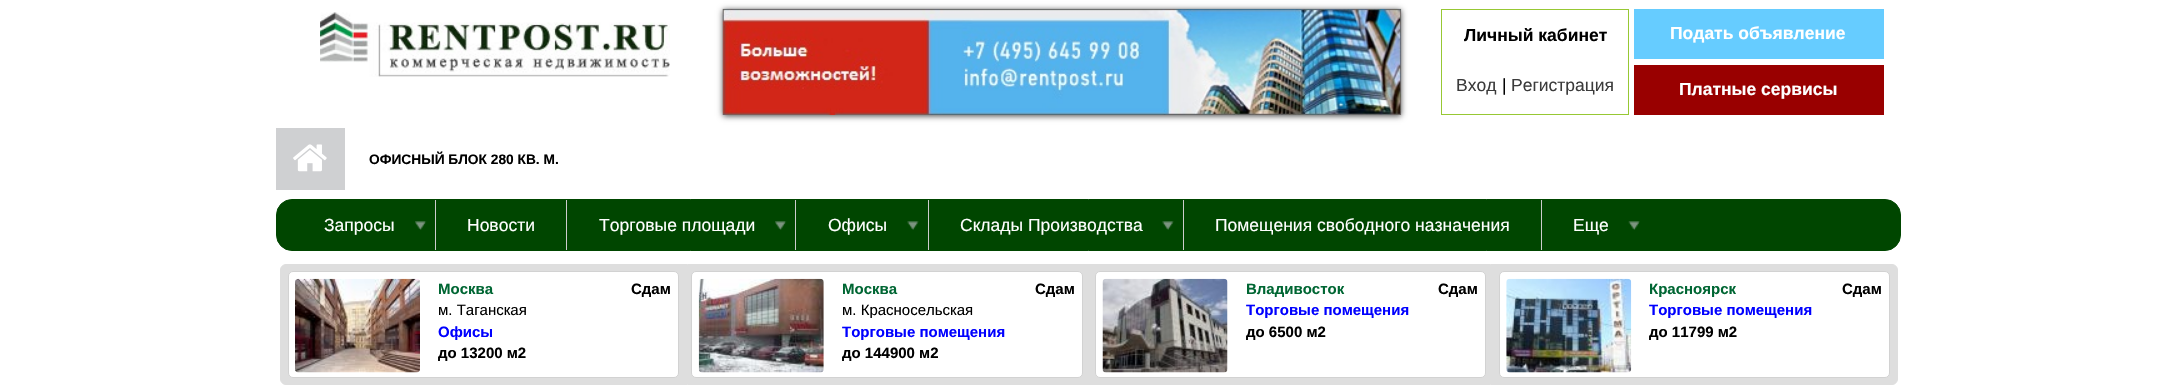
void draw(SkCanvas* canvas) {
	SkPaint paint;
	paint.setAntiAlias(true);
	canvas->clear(0xffffffff);
	canvas->drawImageRect(SkImages::DeferredFromEncodedData(SkData::MakeFromFileName("img1.png")), SkRect::MakeXYWH(320, 12, 350, 65), SkSamplingOptions());
	paint.setColor(0xff4a4a4a);
	paint.setMaskFilter(SkMaskFilter::MakeBlur(kNormal_SkBlurStyle, 3));
	canvas->drawRect(SkRect::MakeXYWH(723, 10, 678, 106), paint);
	paint.setMaskFilter(nullptr);
	canvas->drawImageRect(SkImages::DeferredFromEncodedData(SkData::MakeFromFileName("img2.png")), SkRect::MakeXYWH(722, 8, 680, 107), SkSamplingOptions());
	paint.setStroke(true);
	paint.setStrokeWidth(1);
	paint.setColor(0xff97c834);
	canvas->drawRect(SkRect::MakeXYWH(1441.5, 9.5, 187, 105), paint);
	SkFont f1(fontMgr->matchFamilyStyle("Liberation Sans", SkFontStyle::Bold()), 17.5);
	f1.setSubpixel(true);
	paint.setStroke(false);
	paint.setColor(0xff000000);
	canvas->drawString("Личный кабинет", 1464, 41, f1, paint);
	SkFont f2(fontMgr->matchFamilyStyle("Liberation Sans", SkFontStyle::Normal()), 17.5);
	f2.setSubpixel(true);
	paint.setColor(0xff3b3b3b);
	canvas->drawString("Вход", 1456, 91, f2, paint);
	paint.setColor(0xff000000);
	canvas->drawString("|", 1502, 91, f2, paint);
	paint.setColor(0xff3b3b3b);
	canvas->drawString("Регистрация", 1511, 91, f2, paint);
	paint.setColor(0xff66ccff);
	canvas->drawRect(SkRect::MakeXYWH(1634, 9, 250, 50), paint);
	paint.setColor(0xffffffff);
	canvas->drawString("Подать объявление", 1670, 39, f1, paint);
	paint.setColor(0xff990000);
	canvas->drawRect(SkRect::MakeXYWH(1634, 65, 250, 50), paint);
	paint.setColor(0xffffffff);
	canvas->drawString("Платные сервисы", 1679, 95, f1, paint);
	paint.setColor(0xffcfd0d2);
	canvas->drawRect(SkRect::MakeXYWH(276, 128, 69, 62), paint);
	canvas->drawImageRect(SkImages::DeferredFromEncodedData(SkData::MakeFromFileName("img3.png")), SkRect::MakeXYWH(293, 144, 34, 28), SkSamplingOptions());
	SkFont f3(fontMgr->matchFamilyStyle("Liberation Sans", SkFontStyle::Bold()), 13.75);
	f3.setSubpixel(true);
	paint.setColor(0xff000000);
	canvas->drawString("ОФИСНЫЙ БЛОК 280 КВ. М.", 369, 164, f3, paint);
	paint.setColor(0xff004600);
	canvas->drawRoundRect(SkRect::MakeXYWH(276.5, 199.5, 1624, 51), 15.5, 15.5, paint);
	paint.setStroke(true);
	canvas->drawRoundRect(SkRect::MakeXYWH(276.5, 199.5, 1624, 51), 15.5, 15.5, paint);
	canvas->drawImageRect(SkImages::DeferredFromEncodedData(SkData::MakeFromFileName("img4.png")), SkRect::MakeXYWH(415, 221, 12, 9), SkSamplingOptions());
	paint.setStroke(false);
	paint.setColor(0xffffffff);
	canvas->drawString("Запросы", 324, 231, f2, paint);
	paint.setColor(0xffcccccc);
	canvas->drawRect(SkRect::MakeXYWH(435, 200, 1, 50), paint);
	paint.setColor(0xffffffff);
	canvas->drawString("Новости", 467, 231, f2, paint);
	canvas->drawImageRect(SkImages::DeferredFromEncodedData(SkData::MakeFromFileName("img4.png")), SkRect::MakeXYWH(775, 221, 12, 9), SkSamplingOptions());
	paint.setColor(0xffcccccc);
	canvas->drawRect(SkRect::MakeXYWH(566, 200, 1, 50), paint);
	paint.setColor(0xffffffff);
	canvas->drawString("Торговые площади", 599, 231, f2, paint);
	canvas->drawImageRect(SkImages::DeferredFromEncodedData(SkData::MakeFromFileName("img5.png")), SkRect::MakeXYWH(907, 221, 12, 9), SkSamplingOptions());
	paint.setColor(0xffcccccc);
	canvas->drawRect(SkRect::MakeXYWH(795, 200, 1, 50), paint);
	paint.setColor(0xffffffff);
	canvas->drawString("Офисы", 828, 231, f2, paint);
	canvas->drawImageRect(SkImages::DeferredFromEncodedData(SkData::MakeFromFileName("img6.png")), SkRect::MakeXYWH(1162, 221, 12, 9), SkSamplingOptions());
	paint.setColor(0xffcccccc);
	canvas->drawRect(SkRect::MakeXYWH(928, 200, 1, 50), paint);
	paint.setColor(0xffffffff);
	canvas->drawString("Склады Производства", 960, 231, f2, paint);
	paint.setColor(0xffcccccc);
	canvas->drawRect(SkRect::MakeXYWH(1183, 200, 1, 50), paint);
	paint.setColor(0xffffffff);
	canvas->drawString("Помещения свободного назначения", 1215, 231, f2, paint);
	canvas->drawImageRect(SkImages::DeferredFromEncodedData(SkData::MakeFromFileName("img7.png")), SkRect::MakeXYWH(1628, 221, 12, 9), SkSamplingOptions());
	paint.setColor(0xffcccccc);
	canvas->drawRect(SkRect::MakeXYWH(1541, 200, 1, 50), paint);
	paint.setColor(0xffffffff);
	canvas->drawString("Еще", 1573, 231, f2, paint);
	paint.setColor(0xffdedede);
	canvas->drawRoundRect(SkRect::MakeXYWH(280.5, 264.5, 1617, 120), 5.5, 5.5, paint);
	paint.setStroke(true);
	canvas->drawRoundRect(SkRect::MakeXYWH(280.5, 264.5, 1617, 120), 5.5, 5.5, paint);
	paint.setStroke(false);
	paint.setColor(0xffffffff);
	canvas->drawRoundRect(SkRect::MakeXYWH(288.5, 271.5, 390, 106), 4.5, 4.5, paint);
	paint.setStroke(true);
	paint.setColor(0xffd2d2d2);
	canvas->drawRoundRect(SkRect::MakeXYWH(288.5, 271.5, 390, 106), 4.5, 4.5, paint);
	canvas->drawImageRect(SkImages::DeferredFromEncodedData(SkData::MakeFromFileName("img8.png")), SkRect::MakeXYWH(295, 278, 125, 95), SkSamplingOptions());
	SkFont f4(fontMgr->matchFamilyStyle("Liberation Sans", SkFontStyle::Bold()), 15);
	f4.setSubpixel(true);
	paint.setStroke(false);
	paint.setColor(0xff006633);
	canvas->drawString("Москва", 438, 294, f4, paint);
	paint.setColor(0xff000000);
	canvas->drawString("Сдам", 631, 294, f4, paint);
	SkFont f5(fontMgr->matchFamilyStyle("Liberation Sans", SkFontStyle::Normal()), 15);
	f5.setSubpixel(true);
	canvas->drawString("м. Таганская", 438, 315, f5, paint);
	paint.setColor(0xff0000ff);
	canvas->drawString("Офисы", 438, 337, f4, paint);
	paint.setColor(0xff000000);
	canvas->drawString("до 13200 м2", 438, 358, f4, paint);
	paint.setColor(0xffffffff);
	canvas->drawRoundRect(SkRect::MakeXYWH(691.5, 271.5, 391, 106), 4.5, 4.5, paint);
	paint.setStroke(true);
	paint.setColor(0xffd2d2d2);
	canvas->drawRoundRect(SkRect::MakeXYWH(691.5, 271.5, 391, 106), 4.5, 4.5, paint);
	canvas->drawImageRect(SkImages::DeferredFromEncodedData(SkData::MakeFromFileName("img9.png")), SkRect::MakeXYWH(698, 278, 126, 95), SkSamplingOptions());
	paint.setStroke(false);
	paint.setColor(0xff006633);
	canvas->drawString("Москва", 842, 294, f4, paint);
	paint.setColor(0xff000000);
	canvas->drawString("Сдам", 1035, 294, f4, paint);
	canvas->drawString("м. Красносельская", 842, 315, f5, paint);
	paint.setColor(0xff0000ff);
	canvas->drawString("Торговые помещения", 842, 337, f4, paint);
	paint.setColor(0xff000000);
	canvas->drawString("до 144900 м2", 842, 358, f4, paint);
	paint.setColor(0xffffffff);
	canvas->drawRoundRect(SkRect::MakeXYWH(1095.5, 271.5, 390, 106), 4.5, 4.5, paint);
	paint.setStroke(true);
	paint.setColor(0xffd2d2d2);
	canvas->drawRoundRect(SkRect::MakeXYWH(1095.5, 271.5, 390, 106), 4.5, 4.5, paint);
	canvas->drawImageRect(SkImages::DeferredFromEncodedData(SkData::MakeFromFileName("img10.png")), SkRect::MakeXYWH(1102, 278, 126, 95), SkSamplingOptions());
	paint.setStroke(false);
	paint.setColor(0xff006633);
	canvas->drawString("Владивосток", 1246, 294, f4, paint);
	paint.setColor(0xff000000);
	canvas->drawString("Сдам", 1438, 294, f4, paint);
	paint.setColor(0xff0000ff);
	canvas->drawString("Торговые помещения", 1246, 315, f4, paint);
	paint.setColor(0xff000000);
	canvas->drawString("до 6500 м2", 1246, 337, f4, paint);
	paint.setColor(0xffffffff);
	canvas->drawRoundRect(SkRect::MakeXYWH(1499.5, 271.5, 390, 106), 4.5, 4.5, paint);
	paint.setStroke(true);
	paint.setColor(0xffd2d2d2);
	canvas->drawRoundRect(SkRect::MakeXYWH(1499.5, 271.5, 390, 106), 4.5, 4.5, paint);
	canvas->drawImageRect(SkImages::DeferredFromEncodedData(SkData::MakeFromFileName("img11.png")), SkRect::MakeXYWH(1506, 278, 126, 95), SkSamplingOptions());
	paint.setStroke(false);
	paint.setColor(0xff006633);
	canvas->drawString("Красноярск", 1649, 294, f4, paint);
	paint.setColor(0xff000000);
	canvas->drawString("Сдам", 1842, 294, f4, paint);
	paint.setColor(0xff0000ff);
	canvas->drawString("Торговые помещения", 1649, 315, f4, paint);
	paint.setColor(0xff000000);
	canvas->drawString("до 11799 м2", 1649, 337, f4, paint);
}
